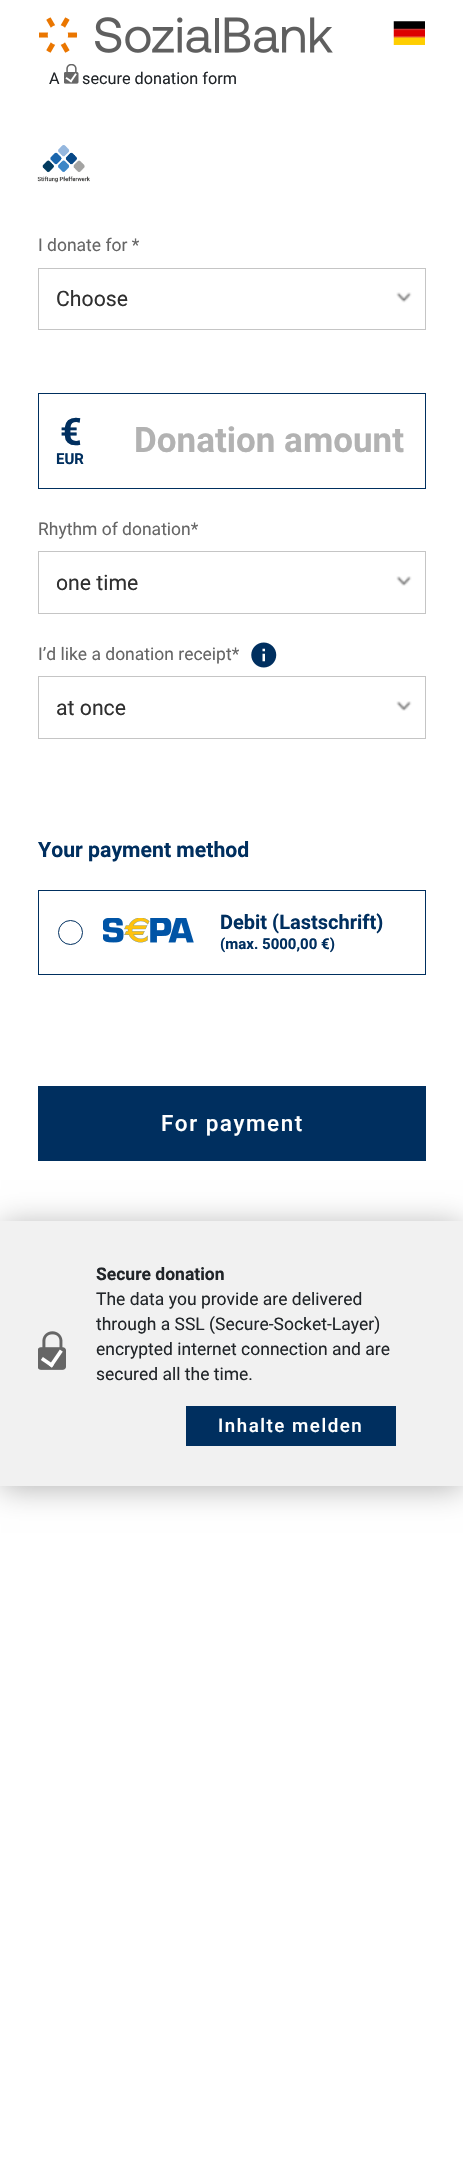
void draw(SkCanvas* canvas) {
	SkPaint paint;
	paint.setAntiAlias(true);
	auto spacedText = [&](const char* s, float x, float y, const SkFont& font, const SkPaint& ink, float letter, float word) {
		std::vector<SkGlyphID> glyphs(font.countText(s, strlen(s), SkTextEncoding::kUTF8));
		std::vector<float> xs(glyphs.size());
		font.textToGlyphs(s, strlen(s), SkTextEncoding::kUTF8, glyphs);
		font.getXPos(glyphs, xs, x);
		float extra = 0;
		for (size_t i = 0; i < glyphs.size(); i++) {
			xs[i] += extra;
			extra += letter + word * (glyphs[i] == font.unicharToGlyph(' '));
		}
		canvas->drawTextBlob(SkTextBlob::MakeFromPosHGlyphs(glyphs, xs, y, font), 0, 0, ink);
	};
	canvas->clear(0xffffffff);
	canvas->drawImageRect(SkImages::DeferredFromEncodedData(SkData::MakeFromFileName("img1.png")), SkRect::MakeXYWH(39, 17, 294, 36), SkSamplingOptions());
	canvas->drawImageRect(SkImages::DeferredFromEncodedData(SkData::MakeFromFileName("img2.png")), SkRect::MakeXYWH(393, 21, 32, 24), SkSamplingOptions());
	SkFont f1(fontMgr->matchFamilyStyle("Roboto", SkFontStyle::Normal()), 16.25);
	f1.setSubpixel(true);
	paint.setColor(0xff212529);
	canvas->drawString("A", 49, 84, f1, paint);
	canvas->drawImageRect(SkImages::DeferredFromEncodedData(SkData::MakeFromFileName("img3.png")), SkRect::MakeXYWH(64, 64, 15, 20), SkSamplingOptions());
	canvas->drawString("secure donation form", 82, 84, f1, paint);
	canvas->drawImageRect(SkImages::DeferredFromEncodedData(SkData::MakeFromFileName("img4.png")), SkRect::MakeXYWH(37, 145, 53, 38), SkSamplingOptions());
	SkFont f2(fontMgr->matchFamilyStyle("Roboto", SkFontStyle::Normal()), 17.5);
	f2.setSubpixel(true);
	paint.setColor(0xff666666);
	canvas->drawString("I donate for *", 38, 251, f2, paint);
	canvas->drawImageRect(SkImages::DeferredFromEncodedData(SkData::MakeFromFileName("img5.png")), SkRect::MakeXYWH(396, 292, 16, 11), SkSamplingOptions());
	paint.setStroke(true);
	paint.setStrokeWidth(1);
	paint.setColor(0xffc5c5c5);
	canvas->drawRect(SkRect::MakeXYWH(38.5, 268.5, 387, 61), paint);
	SkFont f3(fontMgr->matchFamilyStyle("Roboto", SkFontStyle::Normal()), 21.25);
	f3.setSubpixel(true);
	paint.setStroke(false);
	paint.setColor(0xff303030);
	canvas->drawString("Choose", 56, 306, f3, paint);
	paint.setStroke(true);
	paint.setColor(0xff002f5f);
	canvas->drawRect(SkRect::MakeXYWH(38.5, 393.5, 387, 95), paint);
	SkFont f4(fontMgr->matchFamilyStyle("Roboto", SkFontStyle::Bold()), 38);
	f4.setSubpixel(true);
	paint.setStroke(false);
	canvas->drawString("€", 60, 445, f4, paint);
	SkFont f5(fontMgr->matchFamilyStyle("Roboto", SkFontStyle::Bold()), 15);
	f5.setSubpixel(true);
	canvas->drawString("EUR", 56, 464, f5, paint);
	SkFont f6(fontMgr->matchFamilyStyle("Roboto", SkFontStyle::Bold()), 35);
	f6.setSubpixel(true);
	paint.setColor(0xffb2b2b2);
	canvas->drawString("Donation amount", 134, 452, f6, paint);
	paint.setColor(0xff666666);
	canvas->drawString("Rhythm of donation*", 38, 535, f2, paint);
	canvas->drawImageRect(SkImages::DeferredFromEncodedData(SkData::MakeFromFileName("img6.png")), SkRect::MakeXYWH(396, 576, 16, 10), SkSamplingOptions());
	paint.setStroke(true);
	paint.setColor(0xffc5c5c5);
	canvas->drawRect(SkRect::MakeXYWH(38.5, 551.5, 387, 62), paint);
	paint.setStroke(false);
	paint.setColor(0xff303030);
	canvas->drawString("one time", 56, 590, f3, paint);
	paint.setColor(0xff666666);
	canvas->drawString("I’d like a donation receipt*", 38, 660, f2, paint);
	canvas->drawImageRect(SkImages::DeferredFromEncodedData(SkData::MakeFromFileName("img7.png")), SkRect::MakeXYWH(251, 642, 26, 26), SkSamplingOptions());
	canvas->drawImageRect(SkImages::DeferredFromEncodedData(SkData::MakeFromFileName("img6.png")), SkRect::MakeXYWH(396, 701, 16, 10), SkSamplingOptions());
	paint.setStroke(true);
	paint.setColor(0xffc5c5c5);
	canvas->drawRect(SkRect::MakeXYWH(38.5, 676.5, 387, 62), paint);
	paint.setStroke(false);
	paint.setColor(0xff303030);
	canvas->drawString("at once", 56, 715, f3, paint);
	SkFont f7(fontMgr->matchFamilyStyle("Roboto", SkFontStyle::Bold()), 21.25);
	f7.setSubpixel(true);
	paint.setColor(0xff002f5f);
	canvas->drawString("Your payment method", 38, 857, f7, paint);
	paint.setStroke(true);
	canvas->drawRect(SkRect::MakeXYWH(38.5, 890.5, 387, 84), paint);
	canvas->drawCircle(70.5, 932.5, 12, paint);
	canvas->drawImageRect(SkImages::DeferredFromEncodedData(SkData::MakeFromFileName("img8.png")), SkRect::MakeXYWH(103, 918, 91, 25), SkSamplingOptions());
	SkFont f8(fontMgr->matchFamilyStyle("Roboto", SkFontStyle::Bold()), 20);
	f8.setSubpixel(true);
	paint.setStroke(false);
	canvas->drawString("Debit (Lastschrift)", 220, 929, f8, paint);
	canvas->drawString("(max. 5000,00 €)", 220, 949, f5, paint);
	canvas->drawRect(SkRect::MakeXYWH(38, 1086, 388, 75), paint);
	SkFont f9(fontMgr->matchFamilyStyle("Roboto", SkFontStyle(500, SkFontStyle::kNormal_Width, SkFontStyle::kUpright_Slant)), 22.5);
	f9.setSubpixel(true);
	paint.setColor(0xffffffff);
	spacedText("For payment", 161, 1131, f9, paint, 1.5, 0);
	paint.setColor(0x4f000000);
	paint.setMaskFilter(SkMaskFilter::MakeBlur(kNormal_SkBlurStyle, 15));
	canvas->drawRect(SkRect::MakeXYWH(1, 1225, 462, 263), paint);
	paint.setMaskFilter(nullptr);
	paint.setColor(0xfff1f1f1);
	canvas->drawRect(SkRect::MakeXYWH(0, 1221, 463, 265), paint);
	canvas->drawImageRect(SkImages::DeferredFromEncodedData(SkData::MakeFromFileName("img9.png")), SkRect::MakeXYWH(38, 1331, 28, 39), SkSamplingOptions());
	SkFont f10(fontMgr->matchFamilyStyle("Roboto", SkFontStyle::Bold()), 17.5);
	f10.setSubpixel(true);
	paint.setColor(0xff212529);
	canvas->drawString("Secure donation", 96, 1280, f10, paint);
	canvas->drawString("The data you provide are delivered", 96, 1305, f2, paint);
	canvas->drawString("through a SSL (Secure-Socket-Layer)", 96, 1330, f2, paint);
	canvas->drawString("encrypted internet connection and are", 96, 1355, f2, paint);
	canvas->drawString("secured all the time.", 96, 1380, f2, paint);
	paint.setColor(0xff002f5f);
	canvas->drawRect(SkRect::MakeXYWH(186, 1406, 210, 40), paint);
	SkFont f11(fontMgr->matchFamilyStyle("Roboto", SkFontStyle(500, SkFontStyle::kNormal_Width, SkFontStyle::kUpright_Slant)), 18.75);
	f11.setSubpixel(true);
	paint.setColor(0xffffffff);
	spacedText("Inhalte melden", 218, 1432, f11, paint, 1.5, 0);
}
